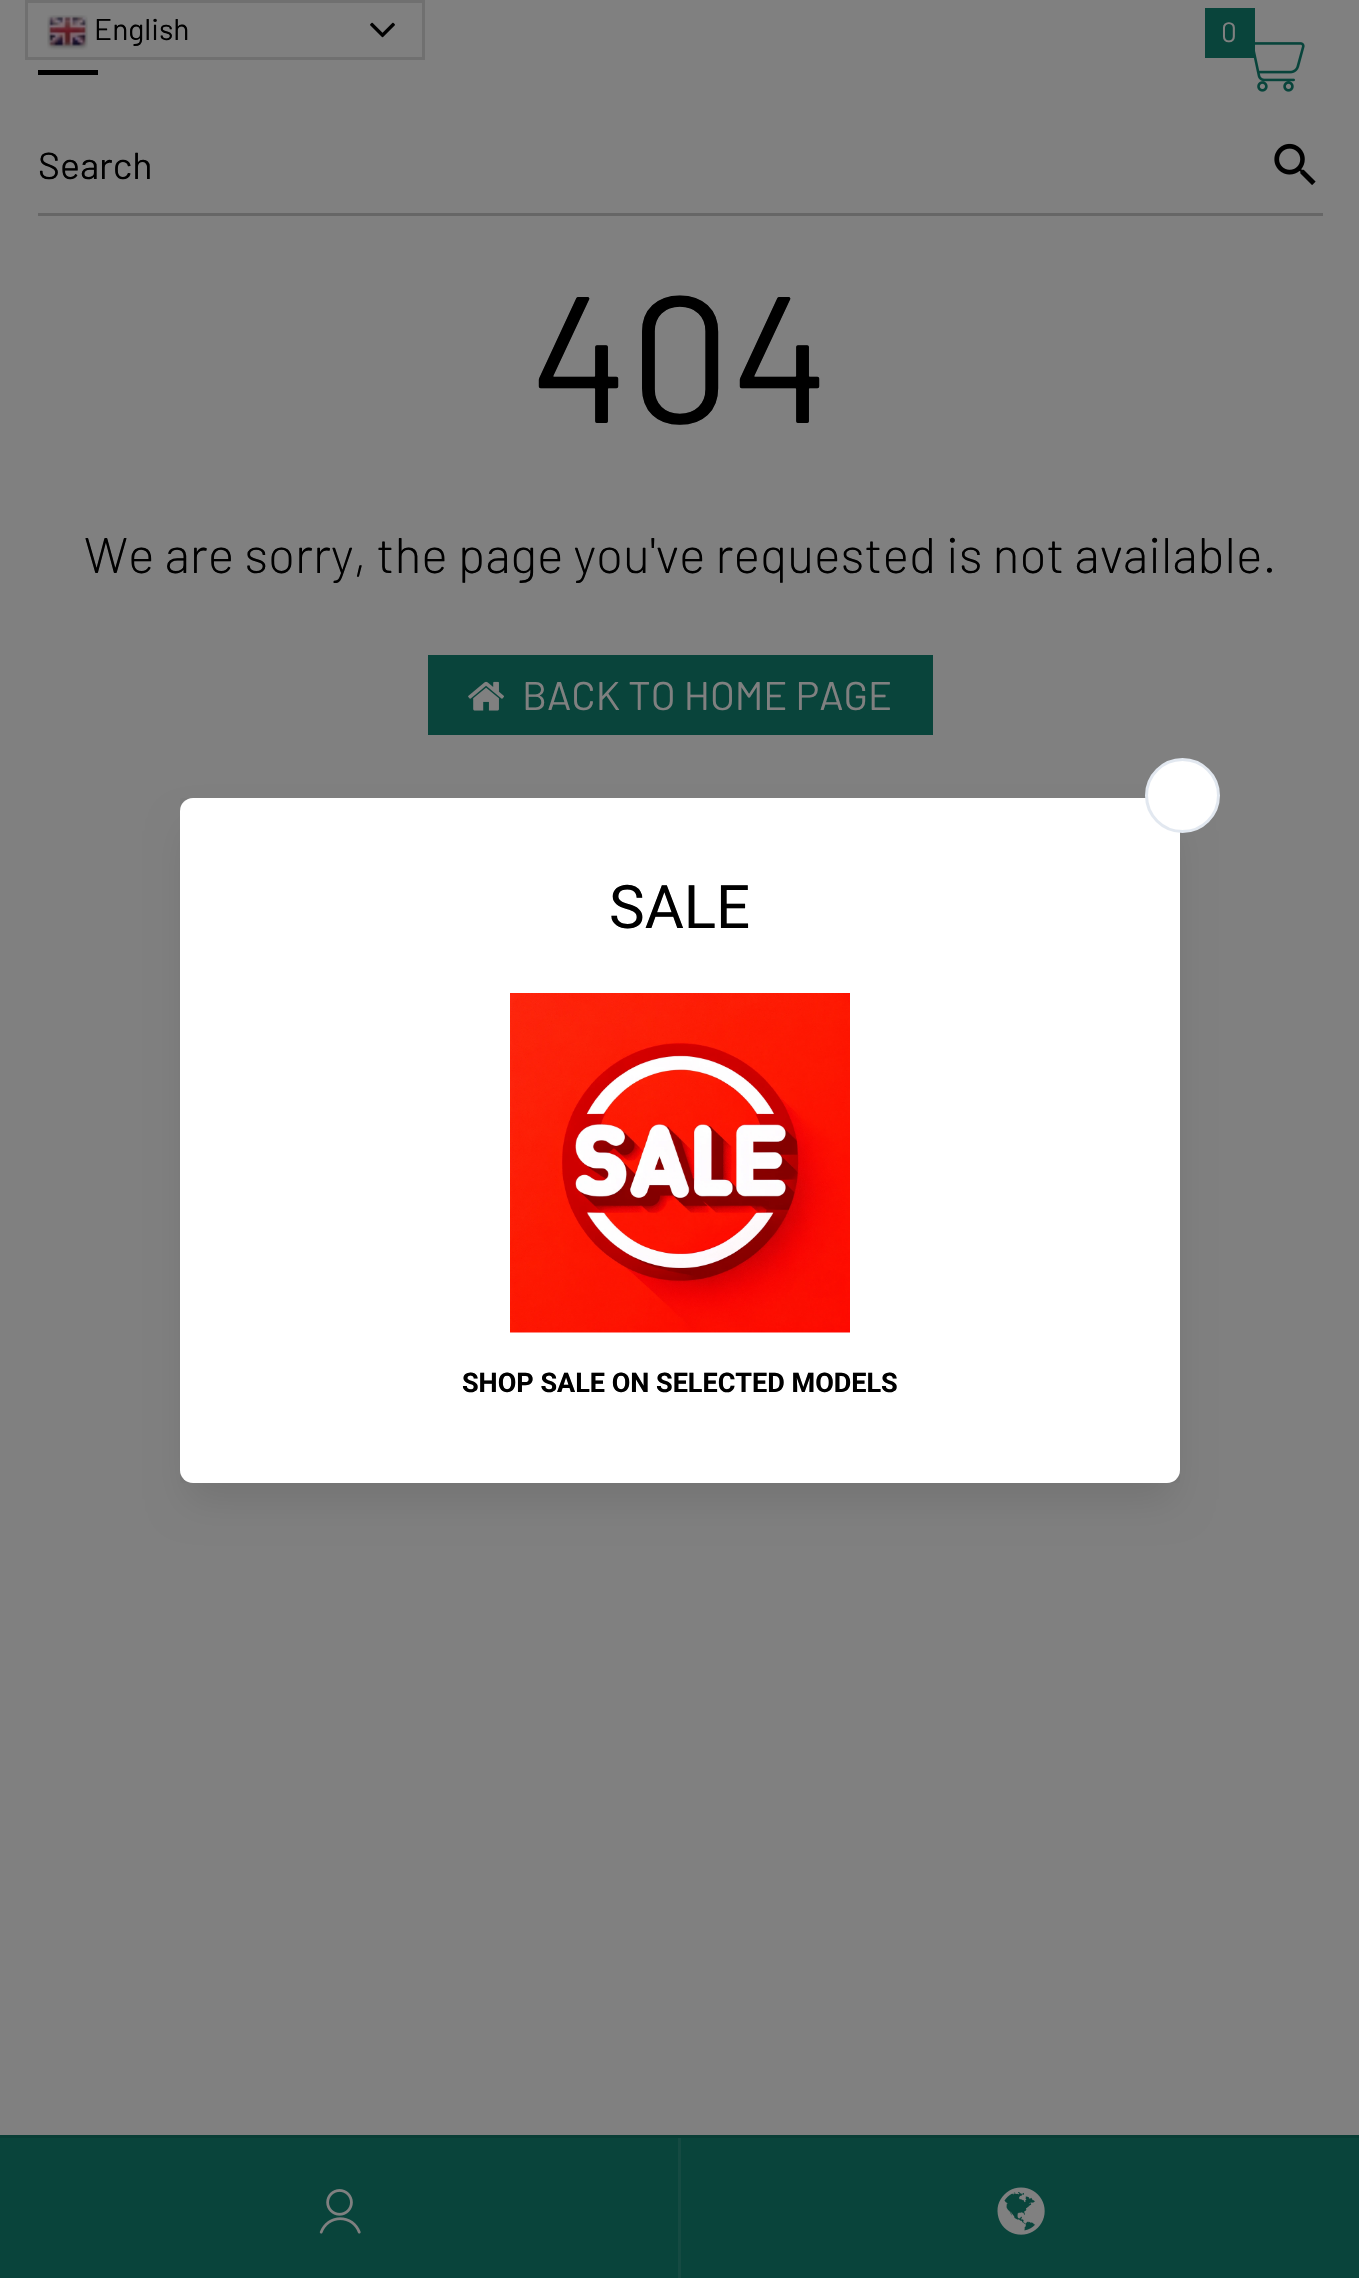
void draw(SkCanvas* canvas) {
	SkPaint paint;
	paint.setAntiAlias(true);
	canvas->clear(0xff808080);
	paint.setStroke(true);
	paint.setStrokeWidth(3);
	paint.setColor(0xff707070);
	canvas->drawRect(SkRect::MakeXYWH(26.5, 1.5, 397, 57), paint);
	canvas->drawImageRect(SkImages::DeferredFromEncodedData(SkData::MakeFromFileName("img1.png")), SkRect::MakeXYWH(47, 15, 41, 35), SkSamplingOptions());
	SkFont f1(fontMgr->matchFamilyStyle("Barlow", SkFontStyle::Normal()), 30);
	f1.setSubpixel(true);
	paint.setStroke(false);
	paint.setColor(0xff000000);
	canvas->drawString("English", 94, 40, f1, paint);
	canvas->drawImageRect(SkImages::DeferredFromEncodedData(SkData::MakeFromFileName("img2.png")), SkRect::MakeXYWH(370, 22, 25, 16), SkSamplingOptions());
	canvas->drawImageRect(SkImages::DeferredFromEncodedData(SkData::MakeFromFileName("img3.png")), SkRect::MakeXYWH(1253, 42, 52, 50), SkSamplingOptions());
	paint.setColor(0xff09443b);
	canvas->drawRect(SkRect::MakeXYWH(1205, 8, 50, 50), paint);
	SkFont f2(fontMgr->matchFamilyStyle("Barlow", SkFontStyle::Normal()), 28);
	f2.setSubpixel(true);
	paint.setColor(0xff808080);
	canvas->drawString("0", 1221, 42, f2, paint);
	paint.setColor(0xff000000);
	canvas->drawRect(SkRect::MakeXYWH(38, 70, 60, 5), paint);
	paint.setColor(0xff666666);
	canvas->drawRect(SkRect::MakeXYWH(38, 213, 1285, 3), paint);
	SkFont f3(fontMgr->matchFamilyStyle("Barlow", SkFontStyle::Normal()), 37.5);
	f3.setSubpixel(true);
	paint.setColor(0xff000000);
	canvas->drawString("Search", 38, 179, f3, paint);
	canvas->drawImageRect(SkImages::DeferredFromEncodedData(SkData::MakeFromFileName("img4.png")), SkRect::MakeXYWH(1274, 143, 42, 42), SkSamplingOptions());
	SkFont f4(fontMgr->matchFamilyStyle("Barlow", SkFontStyle::Normal()), 180);
	f4.setSubpixel(true);
	canvas->drawString("404", 530, 423, f4, paint);
	SkFont f5(fontMgr->matchFamilyStyle("Barlow", SkFontStyle(300, SkFontStyle::kNormal_Width, SkFontStyle::kUpright_Slant)), 50);
	f5.setSubpixel(true);
	canvas->drawString("We are sorry, the page you've requested is not available.", 84, 573, f5, paint);
	paint.setColor(0xff09443b);
	canvas->drawRect(SkRect::MakeXYWH(428, 655, 505, 80), paint);
	canvas->drawImageRect(SkImages::DeferredFromEncodedData(SkData::MakeFromFileName("img5.png")), SkRect::MakeXYWH(468, 681, 36, 30), SkSamplingOptions());
	SkFont f6(fontMgr->matchFamilyStyle("Barlow", SkFontStyle::Normal()), 40);
	f6.setSubpixel(true);
	paint.setColor(0xff808080);
	canvas->drawString("BACK TO HOME PAGE", 522, 710, f6, paint);
	paint.setColor(0xff09443b);
	canvas->drawRect(SkRect::MakeXYWH(0, 2138, 1359, 140), paint);
	paint.setColor(0xff083d35);
	canvas->drawRect(SkRect::MakeXYWH(0, 2135, 1359, 3), paint);
	paint.setColor(0xff154a42);
	canvas->drawRect(SkRect::MakeXYWH(678, 2138, 3, 140), paint);
	canvas->drawImageRect(SkImages::DeferredFromEncodedData(SkData::MakeFromFileName("img6.png")), SkRect::MakeXYWH(319, 2189, 42, 45), SkSamplingOptions());
	canvas->drawImageRect(SkImages::DeferredFromEncodedData(SkData::MakeFromFileName("img7.png")), SkRect::MakeXYWH(997, 2187, 48, 48), SkSamplingOptions());
	paint.setColor(0x1a000000);
	paint.setMaskFilter(SkMaskFilter::MakeBlur(kNormal_SkBlurStyle, 19));
	canvas->drawRoundRect(SkRect::MakeXYWH(188, 830, 985, 670), 4, 4, paint);
	paint.setMaskFilter(nullptr);
	canvas->save();
	canvas->clipRect(SkRect::MakeXYWH(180, 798, 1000, 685));
	paint.setColor(0x1f000000);
	paint.setMaskFilter(SkMaskFilter::MakeBlur(kNormal_SkBlurStyle, 25));
	canvas->drawRoundRect(SkRect::MakeXYWH(188, 805, 985, 670), 4, 4, paint);
	paint.setMaskFilter(nullptr);
	canvas->restore();
	paint.setColor(0xffffffff);
	canvas->drawRoundRect(SkRect::MakeXYWH(180, 798, 1000, 685), 13, 13, paint);
	canvas->drawCircle(1182.5, 795.5, 36, paint);
	paint.setStroke(true);
	paint.setColor(0xffe2e8f0);
	canvas->drawCircle(1182.5, 795.5, 36, paint);
	SkFont f7(fontMgr->matchFamilyStyle("Roboto", SkFontStyle::Normal()), 60);
	f7.setSubpixel(true);
	paint.setStroke(false);
	paint.setColor(0xff000000);
	canvas->drawString("SALE", 609, 928, f7, paint);
	canvas->drawImageRect(SkImages::DeferredFromEncodedData(SkData::MakeFromFileName("img8.png")), SkRect::MakeXYWH(510, 993, 340, 340), SkSamplingOptions());
	SkFont f8(fontMgr->matchFamilyStyle("Roboto", SkFontStyle::Bold()), 27);
	f8.setSubpixel(true);
	canvas->drawString("SHOP SALE ON SELECTED MODELS", 462, 1392, f8, paint);
}
